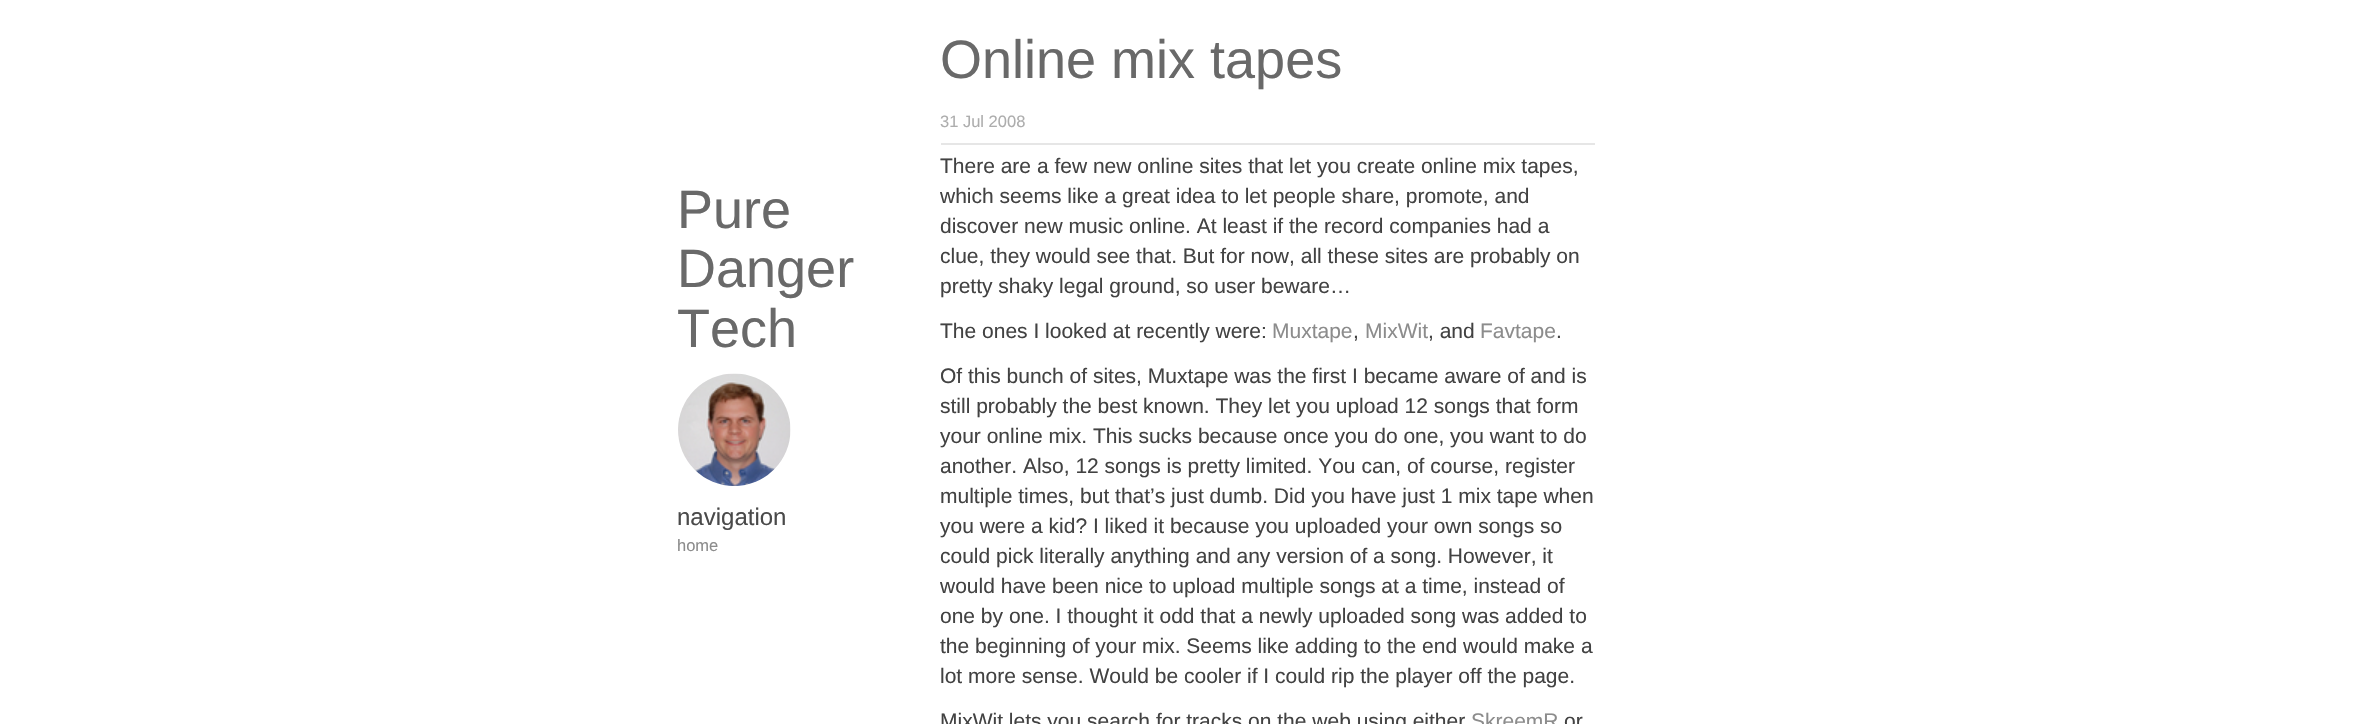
void draw(SkCanvas* canvas) {
	SkPaint paint;
	paint.setAntiAlias(true);
	canvas->clear(0xffffffff);
	SkFont f1(fontMgr->matchFamilyStyle("Liberation Sans", SkFontStyle::Normal()), 54);
	f1.setSubpixel(true);
	paint.setColor(0xff696969);
	canvas->drawString("Pure", 677, 228, f1, paint);
	canvas->drawString("Danger", 677, 287, f1, paint);
	canvas->drawString("Tech", 677, 347, f1, paint);
	canvas->drawImageRect(SkImages::DeferredFromEncodedData(SkData::MakeFromFileName("img1.png")), SkRect::MakeXYWH(678, 373, 113, 113), SkSamplingOptions());
	SkFont f2(fontMgr->matchFamilyStyle("Liberation Sans", SkFontStyle::Normal()), 24);
	f2.setSubpixel(true);
	paint.setColor(0xff4a4a4a);
	canvas->drawString("navigation", 677, 525, f2, paint);
	SkFont f3(fontMgr->matchFamilyStyle("Liberation Sans", SkFontStyle::Normal()), 16.5);
	f3.setSubpixel(true);
	paint.setColor(0xff8c8c8c);
	canvas->drawString("home", 677, 551, f3, paint);
	paint.setColor(0xff696969);
	canvas->drawString("Online mix tapes", 940, 78, f1, paint);
	paint.setColor(0xffadadad);
	canvas->drawString("31 Jul 2008", 940, 127, f3, paint);
	paint.setColor(0xffe6e6e6);
	canvas->drawRect(SkRect::MakeXYWH(941, 143, 654, 2), paint);
	SkFont f4(fontMgr->matchFamilyStyle("Liberation Sans", SkFontStyle::Normal()), 21);
	f4.setSubpixel(true);
	paint.setColor(0xff424242);
	canvas->drawString("There are a few new online sites that let you create online mix tapes,", 940, 173, f4, paint);
	canvas->drawString("which seems like a great idea to let people share, promote, and", 940, 203, f4, paint);
	canvas->drawString("discover new music online. At least if the record companies had a", 940, 233, f4, paint);
	canvas->drawString("clue, they would see that. But for now, all these sites are probably on", 940, 263, f4, paint);
	canvas->drawString("pretty shaky legal ground, so user beware…", 940, 293, f4, paint);
	canvas->drawString("The ones I looked at recently were:", 940, 338, f4, paint);
	paint.setColor(0xff8c8c8c);
	canvas->drawString("Muxtape", 1272, 338, f4, paint);
	paint.setColor(0xff424242);
	canvas->drawString(",", 1353, 338, f4, paint);
	paint.setColor(0xff8c8c8c);
	canvas->drawString("MixWit", 1365, 338, f4, paint);
	paint.setColor(0xff424242);
	canvas->drawString(", and", 1428, 338, f4, paint);
	paint.setColor(0xff8c8c8c);
	canvas->drawString("Favtape", 1480, 338, f4, paint);
	paint.setColor(0xff424242);
	canvas->drawString(".", 1556, 338, f4, paint);
	canvas->drawString("Of this bunch of sites, Muxtape was the first I became aware of and is", 940, 383, f4, paint);
	canvas->drawString("still probably the best known. They let you upload 12 songs that form", 940, 413, f4, paint);
	canvas->drawString("your online mix. This sucks because once you do one, you want to do", 940, 443, f4, paint);
	canvas->drawString("another. Also, 12 songs is pretty limited. You can, of course, register", 940, 473, f4, paint);
	canvas->drawString("multiple times, but that’s just dumb. Did you have just 1 mix tape when", 940, 503, f4, paint);
	canvas->drawString("you were a kid? I liked it because you uploaded your own songs so", 940, 533, f4, paint);
	canvas->drawString("could pick literally anything and any version of a song. However, it", 940, 563, f4, paint);
	canvas->drawString("would have been nice to upload multiple songs at a time, instead of", 940, 593, f4, paint);
	canvas->drawString("one by one. I thought it odd that a newly uploaded song was added to", 940, 623, f4, paint);
	canvas->drawString("the beginning of your mix. Seems like adding to the end would make a", 940, 653, f4, paint);
	canvas->drawString("lot more sense. Would be cooler if I could rip the player off the page.", 940, 683, f4, paint);
	canvas->drawString("MixWit lets you search for tracks on the web using either", 940, 728, f4, paint);
	paint.setColor(0xff8c8c8c);
	canvas->drawString("SkreemR", 1471, 728, f4, paint);
	paint.setColor(0xff424242);
	canvas->drawString("or", 1564, 728, f4, paint);
}
